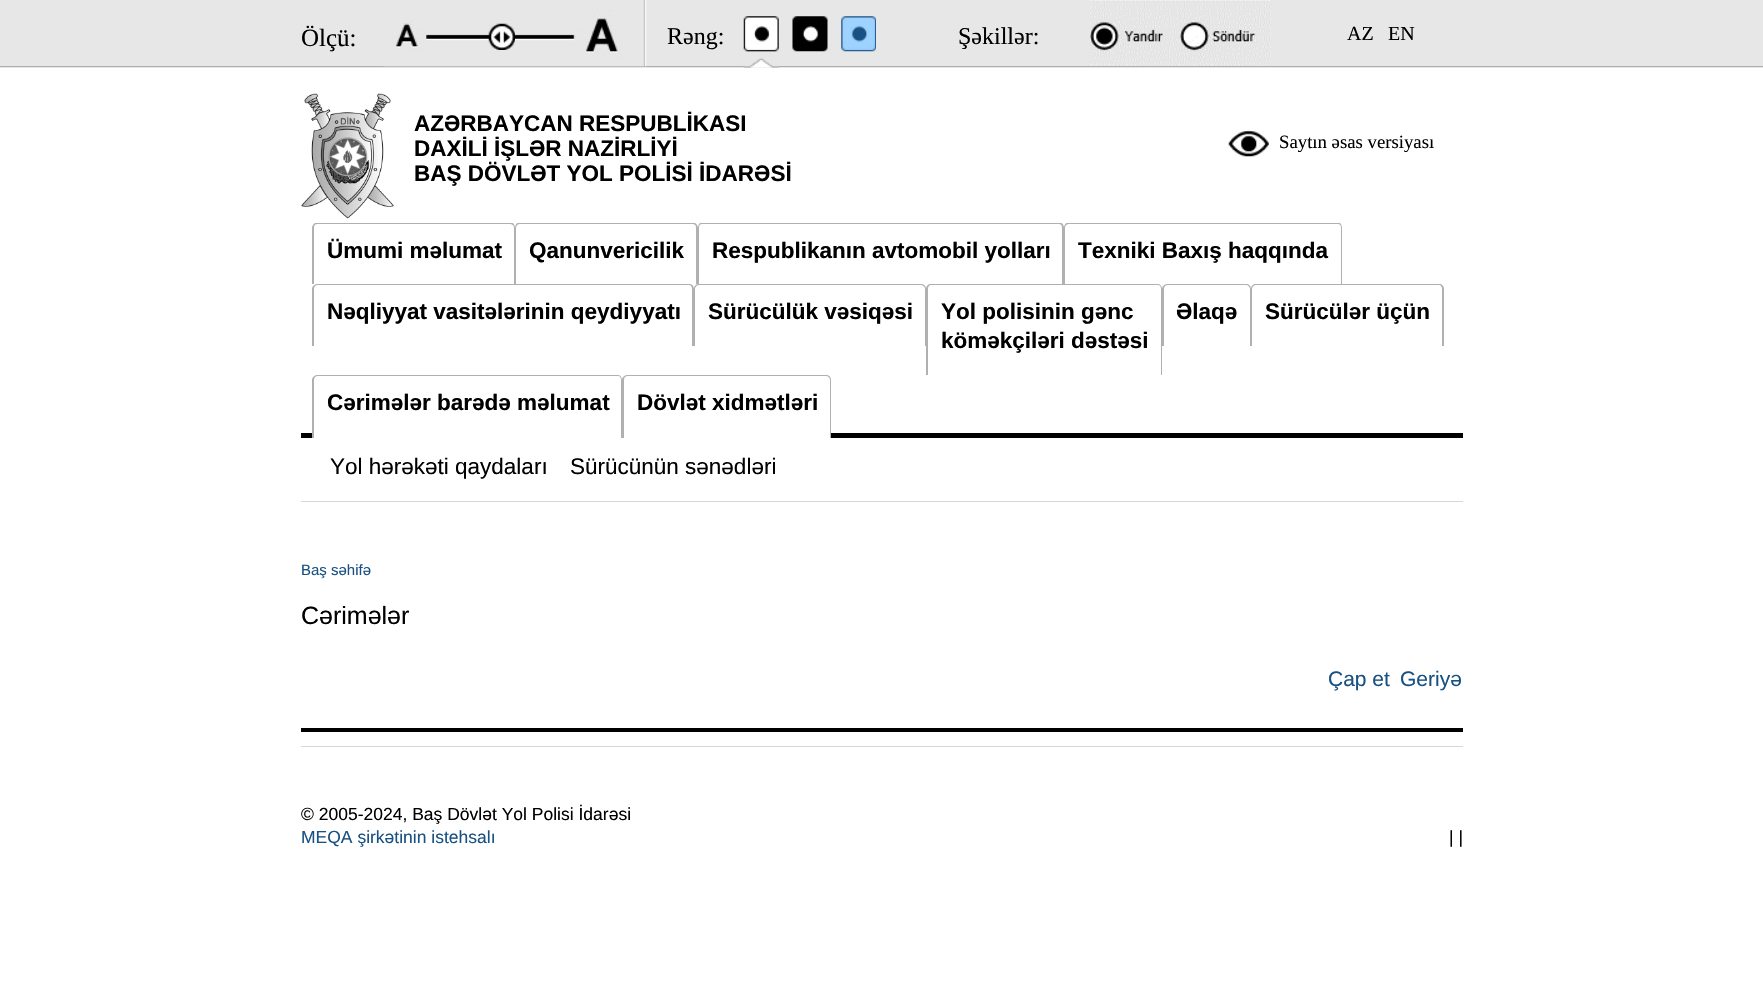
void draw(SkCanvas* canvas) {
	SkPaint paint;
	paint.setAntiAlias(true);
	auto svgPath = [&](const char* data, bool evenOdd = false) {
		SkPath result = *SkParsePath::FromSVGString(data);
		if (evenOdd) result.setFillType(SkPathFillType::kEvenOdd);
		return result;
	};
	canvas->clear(0xffffffff);
	paint.setColor(0xffe7e7e7);
	canvas->drawRect(SkRect::MakeXYWH(0, 0, 1763, 68), paint);
	paint.setColor(0xffaeaeae);
	canvas->drawRect(SkRect::MakeXYWH(0, 66, 1763, 1), paint);
	canvas->drawImageRect(SkImages::DeferredFromEncodedData(SkData::MakeFromFileName("img1.png")), SkRect::MakeXYWH(383, 0, 264, 67), SkSamplingOptions());
	SkFont f1(fontMgr->matchFamilyStyle("Liberation Serif", SkFontStyle::Normal()), 25);
	f1.setSubpixel(true);
	paint.setColor(0xff000000);
	canvas->drawString("Ölçü:", 301, 46, f1, paint);
	canvas->drawImageRect(SkImages::DeferredFromEncodedData(SkData::MakeFromFileName("img2.png")), SkRect::MakeXYWH(488, 23, 27, 27), SkSamplingOptions());
	SkFont f2(fontMgr->matchFamilyStyle("Liberation Serif", SkFontStyle::Normal()), 24);
	f2.setSubpixel(true);
	canvas->drawString("Rəng:", 667, 44, f2, paint);
	canvas->drawImageRect(SkImages::DeferredFromEncodedData(SkData::MakeFromFileName("img3.png")), SkRect::MakeXYWH(743, 16, 36, 52), SkSamplingOptions());
	canvas->drawImageRect(SkImages::DeferredFromEncodedData(SkData::MakeFromFileName("img4.png")), SkRect::MakeXYWH(792, 16, 36, 36), SkSamplingOptions());
	canvas->drawImageRect(SkImages::DeferredFromEncodedData(SkData::MakeFromFileName("img5.png")), SkRect::MakeXYWH(841, 16, 35, 36), SkSamplingOptions());
	canvas->drawString("Şəkillər:", 958, 44, f2, paint);
	canvas->drawImageRect(SkImages::DeferredFromEncodedData(SkData::MakeFromFileName("img6.png")), SkRect::MakeXYWH(1090, 0, 181, 66), SkSamplingOptions());
	SkFont f3(fontMgr->matchFamilyStyle("Liberation Serif", SkFontStyle::Normal()), 20);
	f3.setSubpixel(true);
	canvas->drawString("AZ", 1347, 40, f3, paint);
	canvas->drawString("EN", 1388, 40, f3, paint);
	canvas->drawImageRect(SkImages::DeferredFromEncodedData(SkData::MakeFromFileName("img7.png")), SkRect::MakeXYWH(301, 93, 93, 126), SkSamplingOptions());
	SkFont f4(fontMgr->matchFamilyStyle("Liberation Sans", SkFontStyle::Bold()), 22.5);
	f4.setSubpixel(true);
	canvas->drawString("AZƏRBAYCAN RESPUBLİKASI", 414, 131, f4, paint);
	canvas->drawString("DAXİLİ İŞLƏR NAZİRLİYİ", 414, 156, f4, paint);
	canvas->drawString("BAŞ DÖVLƏT YOL POLİSİ İDARƏSİ", 414, 181, f4, paint);
	canvas->drawImageRect(SkImages::DeferredFromEncodedData(SkData::MakeFromFileName("img8.png")), SkRect::MakeXYWH(1228, 130, 41, 27), SkSamplingOptions());
	SkFont f5(fontMgr->matchFamilyStyle("Liberation Serif", SkFontStyle::Normal()), 18.75);
	f5.setSubpixel(true);
	canvas->drawString("Saytın əsas versiyası", 1279, 148, f5, paint);
	paint.setColor(0xffd8d8d8);
	canvas->drawRect(SkRect::MakeXYWH(301, 501, 1162, 1), paint);
	paint.setColor(0xff000000);
	canvas->drawRect(SkRect::MakeXYWH(301, 433, 1162, 5), paint);
	canvas->save();
	canvas->clipRect(SkRect::MakeXYWH(301, 223, 1162, 215));
	paint.setColor(0xffb0b0b0);
	canvas->drawPath(svgPath("M318 222H510C513 222 515 225 515 228V284H312V228C312 225 315 222 318 222ZM318 224H510C512 224 514 225 514 228V284H314V228C314 225 315 224 318 224Z", true), paint);
	canvas->restore();
	paint.setColor(0xff000000);
	canvas->drawString("Ümumi məlumat", 327, 258, f4, paint);
	canvas->save();
	canvas->clipRect(SkRect::MakeXYWH(301, 223, 1162, 215));
	paint.setColor(0xffb0b0b0);
	canvas->drawPath(svgPath("M520 222H692C695 222 698 225 698 228V284H515V228C515 225 517 222 520 222ZM520 224H692C695 224 696 225 696 228V284H516V228C516 225 518 224 520 224Z", true), paint);
	canvas->restore();
	paint.setColor(0xff000000);
	canvas->drawString("Qanunvericilik", 529, 258, f4, paint);
	canvas->save();
	canvas->clipRect(SkRect::MakeXYWH(301, 223, 1162, 215));
	paint.setColor(0xffb0b0b0);
	canvas->drawPath(svgPath("M702 222H1059C1062 222 1064 225 1064 228V284H698V228C698 225 700 222 702 222ZM702 224H1059C1061 224 1062 225 1062 228V284H699V228C699 225 700 224 702 224Z", true), paint);
	canvas->restore();
	paint.setColor(0xff000000);
	canvas->drawString("Respublikanın avtomobil yolları", 712, 258, f4, paint);
	canvas->save();
	canvas->clipRect(SkRect::MakeXYWH(301, 223, 1162, 215));
	paint.setColor(0xffb0b0b0);
	canvas->drawPath(svgPath("M1069 222H1338C1340 222 1342 225 1342 228V284H1064V228C1064 225 1066 222 1069 222ZM1069 224H1338C1340 224 1341 225 1341 228V284H1065V228C1065 225 1067 224 1069 224Z", true), paint);
	canvas->restore();
	paint.setColor(0xff000000);
	canvas->drawString("Texniki Baxış haqqında", 1078, 258, f4, paint);
	paint.setColor(0xffb0b0b0);
	canvas->drawPath(svgPath("M318 284H689C692 284 694 286 694 289V346H312V289C312 286 315 284 318 284ZM318 285H689C691 285 692 287 692 289V346H314V289C314 287 315 285 318 285Z", true), paint);
	paint.setColor(0xff000000);
	canvas->drawString("Nəqliyyat vasitələrinin qeydiyyatı", 327, 319, f4, paint);
	paint.setColor(0xffb0b0b0);
	canvas->drawPath(svgPath("M699 284H921C924 284 926 286 926 289V346H694V289C694 286 696 284 699 284ZM699 285H921C923 285 925 287 925 289V346H695V289C695 287 697 285 699 285Z", true), paint);
	paint.setColor(0xff000000);
	canvas->drawString("Sürücülük vəsiqəsi", 708, 319, f4, paint);
	paint.setColor(0xffb0b0b0);
	canvas->drawPath(svgPath("M931 284H1158C1160 284 1162 286 1162 289V375H926V289C926 286 928 284 931 284ZM931 285H1158C1160 285 1161 287 1161 289V375H928V289C928 287 929 285 931 285Z", true), paint);
	paint.setColor(0xff000000);
	canvas->drawString("Yol polisinin gənc", 941, 319, f4, paint);
	canvas->drawString("köməkçiləri dəstəsi", 941, 348, f4, paint);
	paint.setColor(0xffb0b0b0);
	canvas->drawPath(svgPath("M1168 284H1246C1249 284 1251 286 1251 289V346H1162V289C1162 286 1165 284 1168 284ZM1168 285H1246C1248 285 1250 287 1250 289V346H1164V289C1164 287 1165 285 1168 285Z", true), paint);
	paint.setColor(0xff000000);
	canvas->drawString("Əlaqə", 1176, 319, f4, paint);
	paint.setColor(0xffb0b0b0);
	canvas->drawPath(svgPath("M1256 284H1439C1442 284 1444 286 1444 289V346H1251V289C1251 286 1253 284 1256 284ZM1256 285H1439C1441 285 1442 287 1442 289V346H1252V289C1252 287 1254 285 1256 285Z", true), paint);
	paint.setColor(0xff000000);
	canvas->drawString("Sürücülər üçün", 1265, 319, f4, paint);
	paint.setColor(0xffffffff);
	canvas->drawPath(svgPath("M318 375H618C621 375 623 377 623 380V438H313V380C313 377 315 375 318 375Z"), paint);
	paint.setColor(0xffb0b0b0);
	canvas->drawPath(svgPath("M318 375H618C620 375 622 377 622 380V438H312V380C312 377 315 375 318 375ZM318 376H618C620 376 621 378 621 380V438H314V380C314 378 315 376 318 376Z", true), paint);
	paint.setColor(0xff000000);
	canvas->drawString("Cərimələr barədə məlumat", 327, 410, f4, paint);
	paint.setColor(0xffffffff);
	canvas->drawPath(svgPath("M628 375H826C829 375 831 377 831 380V438H623V380C623 377 625 375 628 375Z"), paint);
	paint.setColor(0xffb0b0b0);
	canvas->drawPath(svgPath("M628 375H826C829 375 831 377 831 380V438H622V380C622 377 625 375 628 375ZM628 376H826C828 376 830 378 830 380V438H624V380C624 378 625 376 628 376Z", true), paint);
	paint.setColor(0xff000000);
	canvas->drawString("Dövlət xidmətləri", 637, 410, f4, paint);
	SkFont f6(fontMgr->matchFamilyStyle("Liberation Sans", SkFontStyle::Normal()), 22.5);
	f6.setSubpixel(true);
	canvas->drawString("Yol hərəkəti qaydaları", 330, 474, f6, paint);
	canvas->drawString("Sürücünün sənədləri", 570, 474, f6, paint);
	SkFont f7(fontMgr->matchFamilyStyle("Liberation Sans", SkFontStyle::Normal()), 15);
	f7.setSubpixel(true);
	paint.setColor(0xff195183);
	canvas->drawString("Baş səhifə", 301, 575, f7, paint);
	SkFont f8(fontMgr->matchFamilyStyle("Liberation Sans", SkFontStyle::Normal()), 25);
	f8.setSubpixel(true);
	paint.setColor(0xff000000);
	canvas->drawString("Cərimələr", 301, 624, f8, paint);
	SkFont f9(fontMgr->matchFamilyStyle("Liberation Sans", SkFontStyle::Normal()), 21);
	f9.setSubpixel(true);
	paint.setColor(0xff195183);
	canvas->drawString("Çap et", 1328, 686, f9, paint);
	canvas->drawString("Geriyə", 1400, 686, f9, paint);
	paint.setColor(0xff000000);
	canvas->drawRect(SkRect::MakeXYWH(301, 728, 1162, 4), paint);
	paint.setColor(0xffd8d8d8);
	canvas->drawRect(SkRect::MakeXYWH(301, 746, 1162, 1), paint);
	SkFont f10(fontMgr->matchFamilyStyle("Liberation Sans", SkFontStyle::Normal()), 17.5);
	f10.setSubpixel(true);
	paint.setColor(0xff000000);
	canvas->drawString("© 2005-2024, Baş Dövlət Yol Polisi İdarəsi", 301, 820, f10, paint);
	paint.setColor(0xff195183);
	canvas->drawString("MEQA şirkətinin istehsalı", 301, 843, f10, paint);
	paint.setColor(0xff000000);
	canvas->drawString("| |", 1449, 843, f10, paint);
}
